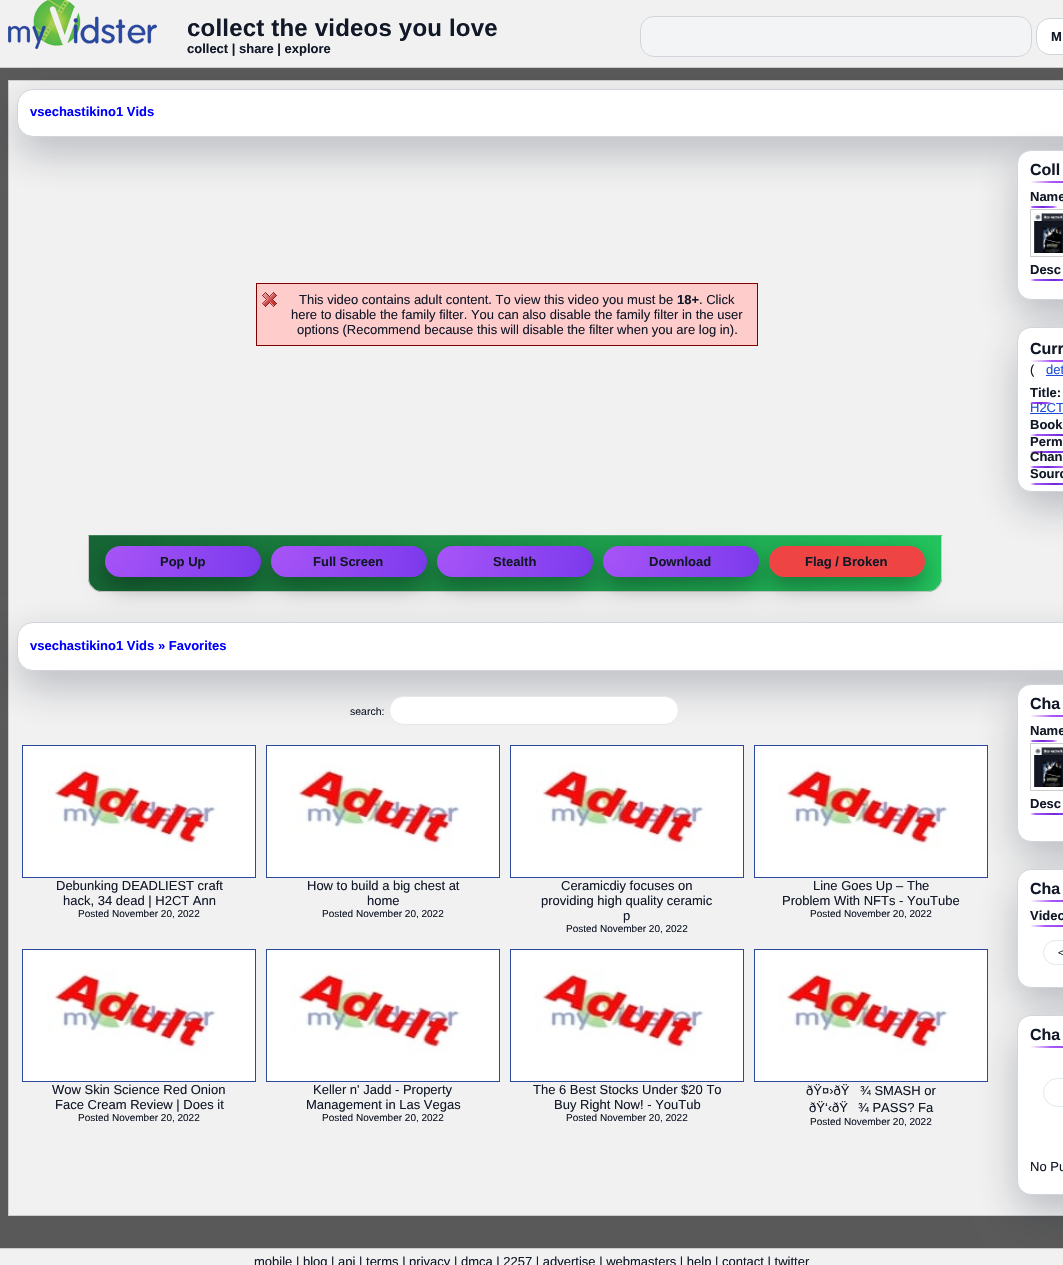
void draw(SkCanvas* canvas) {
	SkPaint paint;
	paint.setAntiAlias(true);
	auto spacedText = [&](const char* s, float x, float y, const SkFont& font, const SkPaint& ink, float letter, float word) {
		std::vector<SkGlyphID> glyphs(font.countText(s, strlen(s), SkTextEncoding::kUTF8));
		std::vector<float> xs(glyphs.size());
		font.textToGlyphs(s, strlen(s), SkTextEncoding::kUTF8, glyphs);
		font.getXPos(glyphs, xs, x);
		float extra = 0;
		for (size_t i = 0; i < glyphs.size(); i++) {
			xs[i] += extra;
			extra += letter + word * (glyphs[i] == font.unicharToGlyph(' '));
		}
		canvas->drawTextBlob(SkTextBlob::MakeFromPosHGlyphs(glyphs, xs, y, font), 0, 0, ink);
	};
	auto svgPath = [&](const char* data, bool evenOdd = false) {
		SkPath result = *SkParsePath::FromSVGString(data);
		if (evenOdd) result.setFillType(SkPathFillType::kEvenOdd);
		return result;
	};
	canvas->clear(0xfff1f1f1);
	paint.setColor(0xffcccccc);
	canvas->drawRect(SkRect::MakeXYWH(0, 67, 1063, 1), paint);
	paint.setColor(0xff595959);
	canvas->drawRect(SkRect::MakeXYWH(0, 68, 1063, 1180), paint);
	paint.setColor(0xfff1f1f1);
	canvas->drawRect(SkRect::MakeXYWH(8.5, 80.5, 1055, 1135), paint);
	paint.setStroke(true);
	paint.setStrokeWidth(1);
	paint.setColor(0xffcccccc);
	canvas->drawRect(SkRect::MakeXYWH(8.5, 80.5, 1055, 1135), paint);
	paint.setStroke(false);
	paint.setColor(0x400f172a);
	paint.setMaskFilter(SkMaskFilter::MakeBlur(kNormal_SkBlurStyle, 20));
	canvas->drawRoundRect(SkRect::MakeXYWH(17, 105, 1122, 48), 16, 16, paint);
	paint.setMaskFilter(nullptr);
	canvas->drawImageRect(SkImages::DeferredFromEncodedData(SkData::MakeFromFileName("img1.png")), SkRect::MakeXYWH(8, 0, 149, 49), SkSamplingOptions());
	SkFont f1(fontMgr->matchFamilyStyle("Liberation Sans", SkFontStyle::Bold()), 24);
	f1.setSubpixel(true);
	paint.setColor(0xff111827);
	spacedText("collect the videos you love", 187, 36, f1, paint, 0.2, 0);
	SkFont f2(fontMgr->matchFamilyStyle("Liberation Sans", SkFontStyle::Bold()), 13);
	f2.setSubpixel(true);
	canvas->drawString("collect | share | explore", 187, 53, f2, paint);
	paint.setColor(0xfff3f4f6);
	canvas->drawRoundRect(SkRect::MakeXYWH(640.5, 16.5, 391, 40), 13.5, 13.5, paint);
	paint.setStroke(true);
	paint.setColor(0xffd1d5db);
	canvas->drawRoundRect(SkRect::MakeXYWH(640.5, 16.5, 391, 40), 13.5, 13.5, paint);
	paint.setStroke(false);
	paint.setColor(0xffffffff);
	canvas->drawRoundRect(SkRect::MakeXYWH(1036.5, 18.5, 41, 36), 13.5, 13.5, paint);
	paint.setStroke(true);
	paint.setColor(0xffd1d5db);
	canvas->drawRoundRect(SkRect::MakeXYWH(1036.5, 18.5, 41, 36), 13.5, 13.5, paint);
	paint.setStroke(false);
	paint.setColor(0xff111827);
	canvas->drawString("M", 1051, 41, f2, paint);
	paint.setColor(0xffffffff);
	canvas->drawRoundRect(SkRect::MakeXYWH(17.5, 89.5, 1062, 47), 15.5, 15.5, paint);
	paint.setStroke(true);
	paint.setColor(0xffd1d5db);
	canvas->drawRoundRect(SkRect::MakeXYWH(17.5, 89.5, 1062, 47), 15.5, 15.5, paint);
	paint.setStroke(false);
	paint.setColor(0xff0000ff);
	canvas->drawString("vsechastikino1 Vids", 30, 116, f2, paint);
	paint.setColor(0xffffcccc);
	canvas->drawRect(SkRect::MakeXYWH(257, 284, 500, 61), paint);
	canvas->drawImageRect(SkImages::DeferredFromEncodedData(SkData::MakeFromFileName("img2.png")), SkRect::MakeXYWH(262, 292, 15, 15), SkSamplingOptions());
	paint.setStroke(true);
	paint.setColor(0xff800000);
	canvas->drawRect(SkRect::MakeXYWH(256.5, 283.5, 501, 62), paint);
	SkFont f3(fontMgr->matchFamilyStyle("Liberation Sans", SkFontStyle::Normal()), 13);
	f3.setSubpixel(true);
	paint.setStroke(false);
	paint.setColor(0xff111827);
	canvas->drawString("This video contains adult content. To view this video you must be", 299, 304, f3, paint);
	canvas->drawString("18+", 677, 304, f2, paint);
	canvas->drawString(". Click", 699, 304, f3, paint);
	canvas->drawString("here to disable the family filter. You can also disable the family filter in the user", 291, 319, f3, paint);
	canvas->drawString("options (Recommend because this will disable the filter when you are log in).", 297, 334, f3, paint);
	paint.setColor(0x400f172a);
	paint.setMaskFilter(SkMaskFilter::MakeBlur(kNormal_SkBlurStyle, 20));
	canvas->drawRoundRect(SkRect::MakeXYWH(17, 638, 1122, 49), 16, 16, paint);
	paint.setMaskFilter(nullptr);
	canvas->save();
	canvas->clipPath(svgPath("M88 535H942V578C942 585.5 935.5 592 928 592H102C94.5 592 88 585.5 88 578Z"), true);
	{
		const SkColor colors[] = {0xff166534, 0xff22c55e};
		const float stops[] = {0, 1};
		const SkPoint ends[] = {{-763, 564}, {89, 564}};
		paint.setShader(SkGradientShader::MakeLinear(ends, colors, stops, 2, SkTileMode::kClamp));
		paint.setAlpha(255);
	}
	canvas->drawRect(SkRect::MakeXYWH(88, 535, 1, 48), paint);
	{
		const SkColor colors[] = {0xff166534, 0xff22c55e};
		const float stops[] = {0, 1};
		const SkPoint ends[] = {{89, 564}, {941, 564}};
		paint.setShader(SkGradientShader::MakeLinear(ends, colors, stops, 2, SkTileMode::kClamp));
		paint.setAlpha(255);
	}
	canvas->drawRect(SkRect::MakeXYWH(89, 535, 852, 57), paint);
	{
		const SkColor colors[] = {0xff166534, 0xff22c55e};
		const float stops[] = {0, 1};
		const SkPoint ends[] = {{941, 564}, {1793, 564}};
		paint.setShader(SkGradientShader::MakeLinear(ends, colors, stops, 2, SkTileMode::kClamp));
		paint.setAlpha(255);
	}
	canvas->drawRect(SkRect::MakeXYWH(941, 535, 1, 48), paint);
	canvas->restore();
	paint.setShader(nullptr);
	paint.setColor(0x2effffff);
	canvas->drawPath(svgPath("M88 535L89 536H941L942 535Z"), paint);
	paint.setColor(0xffcccccc);
	canvas->drawPath(svgPath("M942 535L941 536V578C941 582 940 585 937 587L938 588C940 586 942 582 942 578Z"), paint);
	canvas->drawPath(svgPath("M102 592H928C932 592 936 590 938 588L937 587C935 590 932 591 928 591H102C98 591 95 590 93 587L92 588C94 590 98 592 102 592Z"), paint);
	canvas->drawPath(svgPath("M89 536L88 535V578C88 582 90 586 92 588L93 587C90 585 89 582 89 578Z"), paint);
	paint.setColor(0xffffffff);
	canvas->drawRoundRect(SkRect::MakeXYWH(17.5, 622.5, 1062, 48), 15.5, 15.5, paint);
	paint.setStroke(true);
	paint.setColor(0xffd1d5db);
	canvas->drawRoundRect(SkRect::MakeXYWH(17.5, 622.5, 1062, 48), 15.5, 15.5, paint);
	paint.setStroke(false);
	paint.setColor(0x59000000);
	paint.setMaskFilter(SkMaskFilter::MakeBlur(kNormal_SkBlurStyle, 12.5));
	canvas->drawRoundRect(SkRect::MakeXYWH(105, 556, 156, 31), 15.5, 15.5, paint);
	paint.setMaskFilter(nullptr);
	{
		const SkColor colors[] = {0xffa855f7, 0xff7c3aed};
		const float stops[] = {0, 1};
		paint.setShader(SkGradientShader::MakeRadial({105, 546}, 159, colors, stops, 2, SkTileMode::kClamp));
		paint.setAlpha(255);
	}
	canvas->drawRoundRect(SkRect::MakeXYWH(105, 546, 156, 31), 15.5, 15.5, paint);
	paint.setShader(nullptr);
	paint.setColor(0xff111827);
	canvas->drawString("Pop Up", 160, 566, f2, paint);
	paint.setColor(0x59000000);
	paint.setMaskFilter(SkMaskFilter::MakeBlur(kNormal_SkBlurStyle, 12.5));
	canvas->drawRoundRect(SkRect::MakeXYWH(271, 556, 156, 31), 15.5, 15.5, paint);
	paint.setMaskFilter(nullptr);
	{
		const SkColor colors[] = {0xffa855f7, 0xff7c3aed};
		const float stops[] = {0, 1};
		paint.setShader(SkGradientShader::MakeRadial({271, 546}, 159, colors, stops, 2, SkTileMode::kClamp));
		paint.setAlpha(255);
	}
	canvas->drawRoundRect(SkRect::MakeXYWH(271, 546, 156, 31), 15.5, 15.5, paint);
	paint.setShader(nullptr);
	paint.setColor(0xff111827);
	canvas->drawString("Full Screen", 313, 566, f2, paint);
	paint.setColor(0x59000000);
	paint.setMaskFilter(SkMaskFilter::MakeBlur(kNormal_SkBlurStyle, 12.5));
	canvas->drawRoundRect(SkRect::MakeXYWH(437, 556, 156, 31), 15.5, 15.5, paint);
	paint.setMaskFilter(nullptr);
	{
		const SkColor colors[] = {0xffa855f7, 0xff7c3aed};
		const float stops[] = {0, 1};
		paint.setShader(SkGradientShader::MakeRadial({437, 546}, 159, colors, stops, 2, SkTileMode::kClamp));
		paint.setAlpha(255);
	}
	canvas->drawRoundRect(SkRect::MakeXYWH(437, 546, 156, 31), 15.5, 15.5, paint);
	paint.setShader(nullptr);
	paint.setColor(0xff111827);
	canvas->drawString("Stealth", 493, 566, f2, paint);
	paint.setColor(0x59000000);
	paint.setMaskFilter(SkMaskFilter::MakeBlur(kNormal_SkBlurStyle, 12.5));
	canvas->drawRoundRect(SkRect::MakeXYWH(603, 556, 156, 31), 15.5, 15.5, paint);
	paint.setMaskFilter(nullptr);
	{
		const SkColor colors[] = {0xffa855f7, 0xff7c3aed};
		const float stops[] = {0, 1};
		paint.setShader(SkGradientShader::MakeRadial({603, 546}, 159, colors, stops, 2, SkTileMode::kClamp));
		paint.setAlpha(255);
	}
	canvas->drawRoundRect(SkRect::MakeXYWH(603, 546, 156, 31), 15.5, 15.5, paint);
	paint.setShader(nullptr);
	paint.setColor(0xff111827);
	canvas->drawString("Download", 649, 566, f2, paint);
	paint.setColor(0x59000000);
	paint.setMaskFilter(SkMaskFilter::MakeBlur(kNormal_SkBlurStyle, 12.5));
	canvas->drawRoundRect(SkRect::MakeXYWH(769, 556, 156, 31), 15.5, 15.5, paint);
	paint.setMaskFilter(nullptr);
	paint.setColor(0xffef4444);
	canvas->drawRoundRect(SkRect::MakeXYWH(769, 546, 156, 31), 15.5, 15.5, paint);
	paint.setColor(0xff111827);
	canvas->drawString("Flag / Broken", 805, 566, f2, paint);
	paint.setColor(0x400f172a);
	paint.setMaskFilter(SkMaskFilter::MakeBlur(kNormal_SkBlurStyle, 20));
	canvas->drawRoundRect(SkRect::MakeXYWH(1017, 166, 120, 150), 14, 14, paint);
	paint.setMaskFilter(nullptr);
	paint.setColor(0xffffffff);
	canvas->drawRoundRect(SkRect::MakeXYWH(1017.5, 150.5, 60, 149), 13.5, 13.5, paint);
	paint.setStroke(true);
	paint.setColor(0xffd1d5db);
	canvas->drawRoundRect(SkRect::MakeXYWH(1017.5, 150.5, 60, 149), 13.5, 13.5, paint);
	SkFont f4(fontMgr->matchFamilyStyle("Liberation Sans", SkFontStyle::Bold()), 16);
	f4.setSubpixel(true);
	paint.setStroke(false);
	paint.setColor(0xff111827);
	canvas->drawString("Coll", 1030, 175, f4, paint);
	{
		const SkColor colors[] = {0xffffffff, 0xffa855f7, 0xff6d28d9, 0xffa855f7, 0xffffffff};
		const float stops[] = {0, 0.1, 0.45, 0.8, 1};
		const SkPoint ends[] = {{1030, 182}, {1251, 182}};
		paint.setShader(SkGradientShader::MakeLinear(ends, colors, stops, 5, SkTileMode::kClamp));
		paint.setAlpha(255);
	}
	canvas->drawRoundRect(SkRect::MakeXYWH(1030, 181, 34, 2), 1, 1, paint);
	paint.setShader(nullptr);
	paint.setColor(0xff111827);
	canvas->drawString("Name", 1030, 201, f2, paint);
	{
		const SkColor colors[] = {0xffffffff, 0xffa855f7, 0xff6d28d9, 0xffa855f7, 0xffffffff};
		const float stops[] = {0, 0.1, 0.45, 0.8, 1};
		const SkPoint ends[] = {{1030, 207}, {1058, 207}};
		paint.setShader(SkGradientShader::MakeLinear(ends, colors, stops, 5, SkTileMode::kClamp));
		paint.setAlpha(255);
	}
	canvas->drawRoundRect(SkRect::MakeXYWH(1030, 206, 28, 2), 1, 1, paint);
	paint.setStroke(true);
	paint.setShader(nullptr);
	paint.setColor(0xffcccccc);
	canvas->drawRect(SkRect::MakeXYWH(1030.5, 209.5, 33, 47), paint);
	canvas->drawImageRect(SkImages::DeferredFromEncodedData(SkData::MakeFromFileName("img3.png")), SkRect::MakeXYWH(1034, 213, 29, 40), SkSamplingOptions());
	paint.setStroke(false);
	paint.setColor(0xff111827);
	canvas->drawString("Desc", 1030, 274, f2, paint);
	{
		const SkColor colors[] = {0xffffffff, 0xffa855f7, 0xff6d28d9, 0xffa855f7, 0xffffffff};
		const float stops[] = {0, 0.1, 0.45, 0.8, 1};
		const SkPoint ends[] = {{1030, 280}, {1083, 280}};
		paint.setShader(SkGradientShader::MakeLinear(ends, colors, stops, 5, SkTileMode::kClamp));
		paint.setAlpha(255);
	}
	canvas->drawRoundRect(SkRect::MakeXYWH(1030, 279, 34, 2), 1, 1, paint);
	paint.setShader(nullptr);
	paint.setColor(0x400f172a);
	paint.setMaskFilter(SkMaskFilter::MakeBlur(kNormal_SkBlurStyle, 20));
	canvas->drawRoundRect(SkRect::MakeXYWH(1017, 343, 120, 165), 14, 14, paint);
	paint.setMaskFilter(nullptr);
	paint.setColor(0xffffffff);
	canvas->drawRoundRect(SkRect::MakeXYWH(1017.5, 327.5, 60, 164), 13.5, 13.5, paint);
	paint.setStroke(true);
	paint.setColor(0xffd1d5db);
	canvas->drawRoundRect(SkRect::MakeXYWH(1017.5, 327.5, 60, 164), 13.5, 13.5, paint);
	paint.setStroke(false);
	paint.setColor(0xff111827);
	canvas->drawString("Curr", 1030, 354, f4, paint);
	{
		const SkColor colors[] = {0xffffffff, 0xffa855f7, 0xff6d28d9, 0xffa855f7, 0xffffffff};
		const float stops[] = {0, 0.1, 0.45, 0.8, 1};
		const SkPoint ends[] = {{1030, 361}, {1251, 361}};
		paint.setShader(SkGradientShader::MakeLinear(ends, colors, stops, 5, SkTileMode::kClamp));
		paint.setAlpha(255);
	}
	canvas->drawRoundRect(SkRect::MakeXYWH(1030, 360, 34, 2), 1, 1, paint);
	paint.setShader(nullptr);
	paint.setColor(0xff111827);
	canvas->drawString("(", 1030, 374, f3, paint);
	paint.setColor(0xff1d4ed8);
	canvas->drawString("det", 1046, 374, f3, paint);
	canvas->drawRect(SkRect::MakeXYWH(1046, 375, 17, 1), paint);
	paint.setColor(0xff111827);
	canvas->drawString("Title:", 1030, 397, f2, paint);
	paint.setColor(0xff1d4ed8);
	canvas->drawString("H2CT", 1030, 412, f3, paint);
	{
		const SkColor colors[] = {0x00a855f7, 0xffa855f7, 0xff6d28d9, 0xffa855f7, 0x00a855f7};
		const float stops[] = {0, 0.1, 0.45, 0.8, 1};
		const SkPoint ends[] = {{1030, 403}, {1052, 403}};
		paint.setShader(SkGradientShader::MakeLinear(ends, colors, stops, 5, SkTileMode::kClamp));
		paint.setAlpha(255);
	}
	canvas->drawRect(SkRect::MakeXYWH(1030, 402, 22, 2), paint);
	paint.setShader(nullptr);
	paint.setColor(0xff1d4ed8);
	canvas->drawRect(SkRect::MakeXYWH(1030, 413, 33, 1), paint);
	paint.setColor(0xff111827);
	canvas->drawString("Book", 1030, 429, f2, paint);
	{
		const SkColor colors[] = {0xffffffff, 0xffa855f7, 0xff6d28d9, 0xffa855f7, 0xffffffff};
		const float stops[] = {0, 0.1, 0.45, 0.8, 1};
		const SkPoint ends[] = {{1030, 435}, {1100, 435}};
		paint.setShader(SkGradientShader::MakeLinear(ends, colors, stops, 5, SkTileMode::kClamp));
		paint.setAlpha(255);
	}
	canvas->drawRoundRect(SkRect::MakeXYWH(1030, 434, 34, 2), 1, 1, paint);
	paint.setShader(nullptr);
	paint.setColor(0xff111827);
	canvas->drawString("Perm", 1030, 446, f2, paint);
	{
		const SkColor colors[] = {0xffffffff, 0xffa855f7, 0xff6d28d9, 0xffa855f7, 0xffffffff};
		const float stops[] = {0, 0.1, 0.45, 0.8, 1};
		const SkPoint ends[] = {{1030, 452}, {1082, 452}};
		paint.setShader(SkGradientShader::MakeLinear(ends, colors, stops, 5, SkTileMode::kClamp));
		paint.setAlpha(255);
	}
	canvas->drawRoundRect(SkRect::MakeXYWH(1030, 451, 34, 2), 1, 1, paint);
	paint.setShader(nullptr);
	paint.setColor(0xff111827);
	canvas->drawString("Chan", 1030, 461, f2, paint);
	{
		const SkColor colors[] = {0xffffffff, 0xffa855f7, 0xff6d28d9, 0xffa855f7, 0xffffffff};
		const float stops[] = {0, 0.1, 0.45, 0.8, 1};
		const SkPoint ends[] = {{1030, 467}, {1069, 467}};
		paint.setShader(SkGradientShader::MakeLinear(ends, colors, stops, 5, SkTileMode::kClamp));
		paint.setAlpha(255);
	}
	canvas->drawRoundRect(SkRect::MakeXYWH(1030, 466, 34, 2), 1, 1, paint);
	paint.setShader(nullptr);
	paint.setColor(0xff111827);
	canvas->drawString("Sourc", 1030, 478, f2, paint);
	{
		const SkColor colors[] = {0xffffffff, 0xffa855f7, 0xff6d28d9, 0xffa855f7, 0xffffffff};
		const float stops[] = {0, 0.1, 0.45, 0.8, 1};
		const SkPoint ends[] = {{1030, 484}, {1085, 484}};
		paint.setShader(SkGradientShader::MakeLinear(ends, colors, stops, 5, SkTileMode::kClamp));
		paint.setAlpha(255);
	}
	canvas->drawRoundRect(SkRect::MakeXYWH(1030, 483, 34, 2), 1, 1, paint);
	paint.setShader(nullptr);
	paint.setColor(0xff0000ff);
	canvas->drawString("vsechastikino1 Vids » Favorites", 30, 650, f2, paint);
	SkFont f5(fontMgr->matchFamilyStyle("Liberation Sans", SkFontStyle::Normal()), 10.5);
	f5.setSubpixel(true);
	paint.setColor(0xff111827);
	canvas->drawString("search:", 350, 715, f5, paint);
	paint.setColor(0xffffffff);
	canvas->drawRoundRect(SkRect::MakeXYWH(389.5, 696.5, 289, 28), 14, 14, paint);
	paint.setStroke(true);
	paint.setColor(0xffe5e7eb);
	canvas->drawRoundRect(SkRect::MakeXYWH(389.5, 696.5, 289, 28), 14, 14, paint);
	paint.setStroke(false);
	paint.setColor(0xffffffff);
	canvas->drawRect(SkRect::MakeXYWH(22.5, 745.5, 233, 132), paint);
	paint.setStroke(true);
	paint.setColor(0xff2b4a9f);
	canvas->drawRect(SkRect::MakeXYWH(22.5, 745.5, 233, 132), paint);
	canvas->drawImageRect(SkImages::DeferredFromEncodedData(SkData::MakeFromFileName("img4.png")), SkRect::MakeXYWH(47, 764, 171, 86), SkSamplingOptions());
	paint.setStroke(false);
	paint.setColor(0xff111827);
	canvas->drawString("Debunking DEADLIEST craft", 56, 890, f3, paint);
	canvas->drawString("hack, 34 dead | H2CT Ann", 63, 905, f3, paint);
	SkFont f6(fontMgr->matchFamilyStyle("Liberation Sans", SkFontStyle::Normal()), 10);
	f6.setSubpixel(true);
	canvas->drawString("Posted November 20, 2022", 78, 917, f6, paint);
	paint.setColor(0xffffffff);
	canvas->drawRect(SkRect::MakeXYWH(266.5, 745.5, 233, 132), paint);
	paint.setStroke(true);
	paint.setColor(0xff2b4a9f);
	canvas->drawRect(SkRect::MakeXYWH(266.5, 745.5, 233, 132), paint);
	canvas->drawImageRect(SkImages::DeferredFromEncodedData(SkData::MakeFromFileName("img5.png")), SkRect::MakeXYWH(291, 764, 171, 86), SkSamplingOptions());
	paint.setStroke(false);
	paint.setColor(0xff111827);
	canvas->drawString("How to build a big chest at", 307, 890, f3, paint);
	canvas->drawString("home", 367, 905, f3, paint);
	canvas->drawString("Posted November 20, 2022", 322, 917, f6, paint);
	paint.setColor(0xffffffff);
	canvas->drawRect(SkRect::MakeXYWH(510.5, 745.5, 233, 132), paint);
	paint.setStroke(true);
	paint.setColor(0xff2b4a9f);
	canvas->drawRect(SkRect::MakeXYWH(510.5, 745.5, 233, 132), paint);
	canvas->drawImageRect(SkImages::DeferredFromEncodedData(SkData::MakeFromFileName("img5.png")), SkRect::MakeXYWH(535, 764, 171, 86), SkSamplingOptions());
	paint.setStroke(false);
	paint.setColor(0xff111827);
	canvas->drawString("Ceramicdiy focuses on", 561, 890, f3, paint);
	canvas->drawString("providing high quality ceramic", 541, 905, f3, paint);
	canvas->drawString("p", 623, 920, f3, paint);
	canvas->drawString("Posted November 20, 2022", 566, 932, f6, paint);
	paint.setColor(0x400f172a);
	paint.setMaskFilter(SkMaskFilter::MakeBlur(kNormal_SkBlurStyle, 20));
	canvas->drawRoundRect(SkRect::MakeXYWH(1017, 700, 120, 158), 14, 14, paint);
	paint.setMaskFilter(nullptr);
	paint.setColor(0xffffffff);
	canvas->drawRoundRect(SkRect::MakeXYWH(1017.5, 684.5, 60, 157), 13.5, 13.5, paint);
	paint.setStroke(true);
	paint.setColor(0xffd1d5db);
	canvas->drawRoundRect(SkRect::MakeXYWH(1017.5, 684.5, 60, 157), 13.5, 13.5, paint);
	paint.setStroke(false);
	paint.setColor(0x400f172a);
	paint.setMaskFilter(SkMaskFilter::MakeBlur(kNormal_SkBlurStyle, 20));
	canvas->drawRoundRect(SkRect::MakeXYWH(1017, 885, 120, 119), 14, 14, paint);
	paint.setMaskFilter(nullptr);
	paint.setColor(0xffffffff);
	canvas->drawRect(SkRect::MakeXYWH(754.5, 745.5, 233, 132), paint);
	paint.setStroke(true);
	paint.setColor(0xff2b4a9f);
	canvas->drawRect(SkRect::MakeXYWH(754.5, 745.5, 233, 132), paint);
	canvas->drawImageRect(SkImages::DeferredFromEncodedData(SkData::MakeFromFileName("img5.png")), SkRect::MakeXYWH(779, 764, 171, 86), SkSamplingOptions());
	paint.setStroke(false);
	paint.setColor(0xff111827);
	canvas->drawString("Line Goes Up – The", 813, 890, f3, paint);
	canvas->drawString("Problem With NFTs - YouTube", 782, 905, f3, paint);
	canvas->drawString("Posted November 20, 2022", 810, 917, f6, paint);
	paint.setColor(0xffffffff);
	canvas->drawRect(SkRect::MakeXYWH(22.5, 949.5, 233, 132), paint);
	paint.setStroke(true);
	paint.setColor(0xff2b4a9f);
	canvas->drawRect(SkRect::MakeXYWH(22.5, 949.5, 233, 132), paint);
	canvas->drawImageRect(SkImages::DeferredFromEncodedData(SkData::MakeFromFileName("img4.png")), SkRect::MakeXYWH(47, 968, 171, 86), SkSamplingOptions());
	paint.setStroke(false);
	paint.setColor(0xff111827);
	canvas->drawString("Wow Skin Science Red Onion", 52, 1094, f3, paint);
	canvas->drawString("Face Cream Review | Does it", 55, 1109, f3, paint);
	canvas->drawString("Posted November 20, 2022", 78, 1121, f6, paint);
	paint.setColor(0xffffffff);
	canvas->drawRect(SkRect::MakeXYWH(266.5, 949.5, 233, 132), paint);
	paint.setStroke(true);
	paint.setColor(0xff2b4a9f);
	canvas->drawRect(SkRect::MakeXYWH(266.5, 949.5, 233, 132), paint);
	canvas->drawImageRect(SkImages::DeferredFromEncodedData(SkData::MakeFromFileName("img5.png")), SkRect::MakeXYWH(291, 968, 171, 86), SkSamplingOptions());
	paint.setStroke(false);
	paint.setColor(0xff111827);
	canvas->drawString("Keller n' Jadd - Property", 313, 1094, f3, paint);
	canvas->drawString("Management in Las Vegas", 306, 1109, f3, paint);
	canvas->drawString("Posted November 20, 2022", 322, 1121, f6, paint);
	paint.setColor(0xffffffff);
	canvas->drawRect(SkRect::MakeXYWH(510.5, 949.5, 233, 132), paint);
	paint.setStroke(true);
	paint.setColor(0xff2b4a9f);
	canvas->drawRect(SkRect::MakeXYWH(510.5, 949.5, 233, 132), paint);
	canvas->drawImageRect(SkImages::DeferredFromEncodedData(SkData::MakeFromFileName("img5.png")), SkRect::MakeXYWH(535, 968, 171, 86), SkSamplingOptions());
	paint.setStroke(false);
	paint.setColor(0xff111827);
	canvas->drawString("The 6 Best Stocks Under $20 To", 533, 1094, f3, paint);
	canvas->drawString("Buy Right Now! - YouTub", 554, 1109, f3, paint);
	canvas->drawString("Posted November 20, 2022", 566, 1121, f6, paint);
	paint.setColor(0xffffffff);
	canvas->drawRoundRect(SkRect::MakeXYWH(1017.5, 869.5, 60, 118), 13.5, 13.5, paint);
	paint.setStroke(true);
	paint.setColor(0xffd1d5db);
	canvas->drawRoundRect(SkRect::MakeXYWH(1017.5, 869.5, 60, 118), 13.5, 13.5, paint);
	paint.setStroke(false);
	paint.setColor(0x400f172a);
	paint.setMaskFilter(SkMaskFilter::MakeBlur(kNormal_SkBlurStyle, 20));
	canvas->drawRoundRect(SkRect::MakeXYWH(1017, 1031, 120, 180), 14, 14, paint);
	paint.setMaskFilter(nullptr);
	paint.setColor(0xffffffff);
	canvas->drawRect(SkRect::MakeXYWH(754.5, 949.5, 233, 132), paint);
	paint.setStroke(true);
	paint.setColor(0xff2b4a9f);
	canvas->drawRect(SkRect::MakeXYWH(754.5, 949.5, 233, 132), paint);
	canvas->drawImageRect(SkImages::DeferredFromEncodedData(SkData::MakeFromFileName("img5.png")), SkRect::MakeXYWH(779, 968, 171, 86), SkSamplingOptions());
	paint.setStroke(false);
	paint.setColor(0xff111827);
	canvas->drawString("ðŸ¤›ðŸ", 806, 1095, f3, paint);
	canvas->drawString("¾ SMASH or", 860, 1095, f3, paint);
	canvas->drawString("ðŸ‘‹ðŸ", 809, 1112, f3, paint);
	canvas->drawString("¾ PASS? Fa", 858, 1112, f3, paint);
	canvas->drawString("Posted November 20, 2022", 810, 1125, f6, paint);
	canvas->drawString("Cha", 1030, 709, f4, paint);
	{
		const SkColor colors[] = {0xffffffff, 0xffa855f7, 0xff6d28d9, 0xffa855f7, 0xffffffff};
		const float stops[] = {0, 0.1, 0.45, 0.8, 1};
		const SkPoint ends[] = {{1030, 716}, {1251, 716}};
		paint.setShader(SkGradientShader::MakeLinear(ends, colors, stops, 5, SkTileMode::kClamp));
		paint.setAlpha(255);
	}
	canvas->drawRoundRect(SkRect::MakeXYWH(1030, 715, 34, 2), 1, 1, paint);
	paint.setShader(nullptr);
	paint.setColor(0xff111827);
	canvas->drawString("Name", 1030, 735, f2, paint);
	{
		const SkColor colors[] = {0xffffffff, 0xffa855f7, 0xff6d28d9, 0xffa855f7, 0xffffffff};
		const float stops[] = {0, 0.1, 0.45, 0.8, 1};
		const SkPoint ends[] = {{1030, 741}, {1058, 741}};
		paint.setShader(SkGradientShader::MakeLinear(ends, colors, stops, 5, SkTileMode::kClamp));
		paint.setAlpha(255);
	}
	canvas->drawRoundRect(SkRect::MakeXYWH(1030, 740, 28, 2), 1, 1, paint);
	paint.setStroke(true);
	paint.setShader(nullptr);
	paint.setColor(0xffcccccc);
	canvas->drawRect(SkRect::MakeXYWH(1030.5, 743.5, 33, 47), paint);
	canvas->drawImageRect(SkImages::DeferredFromEncodedData(SkData::MakeFromFileName("img3.png")), SkRect::MakeXYWH(1034, 747, 29, 40), SkSamplingOptions());
	paint.setStroke(false);
	paint.setColor(0xff111827);
	canvas->drawString("Desc", 1030, 808, f2, paint);
	{
		const SkColor colors[] = {0xffffffff, 0xffa855f7, 0xff6d28d9, 0xffa855f7, 0xffffffff};
		const float stops[] = {0, 0.1, 0.45, 0.8, 1};
		const SkPoint ends[] = {{1030, 814}, {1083, 814}};
		paint.setShader(SkGradientShader::MakeLinear(ends, colors, stops, 5, SkTileMode::kClamp));
		paint.setAlpha(255);
	}
	canvas->drawRoundRect(SkRect::MakeXYWH(1030, 813, 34, 2), 1, 1, paint);
	paint.setShader(nullptr);
	paint.setColor(0xff111827);
	canvas->drawString("Cha", 1030, 894, f4, paint);
	{
		const SkColor colors[] = {0xffffffff, 0xffa855f7, 0xff6d28d9, 0xffa855f7, 0xffffffff};
		const float stops[] = {0, 0.1, 0.45, 0.8, 1};
		const SkPoint ends[] = {{1030, 901}, {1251, 901}};
		paint.setShader(SkGradientShader::MakeLinear(ends, colors, stops, 5, SkTileMode::kClamp));
		paint.setAlpha(255);
	}
	canvas->drawRoundRect(SkRect::MakeXYWH(1030, 900, 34, 2), 1, 1, paint);
	paint.setShader(nullptr);
	paint.setColor(0xff111827);
	canvas->drawString("Video", 1030, 920, f2, paint);
	{
		const SkColor colors[] = {0xffffffff, 0xffa855f7, 0xff6d28d9, 0xffa855f7, 0xffffffff};
		const float stops[] = {0, 0.1, 0.45, 0.8, 1};
		const SkPoint ends[] = {{1030, 926}, {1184, 926}};
		paint.setShader(SkGradientShader::MakeLinear(ends, colors, stops, 5, SkTileMode::kClamp));
		paint.setAlpha(255);
	}
	canvas->drawRoundRect(SkRect::MakeXYWH(1030, 925, 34, 2), 1, 1, paint);
	paint.setStroke(true);
	paint.setShader(nullptr);
	paint.setColor(0xffe5e7eb);
	canvas->drawRoundRect(SkRect::MakeXYWH(1043.5, 940.5, 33, 24), 12, 12, paint);
	paint.setStroke(false);
	paint.setColor(0xff111827);
	canvas->drawString("<", 1058, 956, f6, paint);
	paint.setColor(0xffffffff);
	canvas->drawRoundRect(SkRect::MakeXYWH(1017.5, 1015.5, 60, 179), 13.5, 13.5, paint);
	paint.setStroke(true);
	paint.setColor(0xffd1d5db);
	canvas->drawRoundRect(SkRect::MakeXYWH(1017.5, 1015.5, 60, 179), 13.5, 13.5, paint);
	paint.setStroke(false);
	paint.setColor(0xff111827);
	canvas->drawString("Cha", 1030, 1040, f4, paint);
	{
		const SkColor colors[] = {0xffffffff, 0xffa855f7, 0xff6d28d9, 0xffa855f7, 0xffffffff};
		const float stops[] = {0, 0.1, 0.45, 0.8, 1};
		const SkPoint ends[] = {{1030, 1047}, {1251, 1047}};
		paint.setShader(SkGradientShader::MakeLinear(ends, colors, stops, 5, SkTileMode::kClamp));
		paint.setAlpha(255);
	}
	canvas->drawRoundRect(SkRect::MakeXYWH(1030, 1046, 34, 2), 1, 1, paint);
	paint.setStroke(true);
	paint.setShader(nullptr);
	paint.setColor(0xffe5e7eb);
	canvas->drawRoundRect(SkRect::MakeXYWH(1043.5, 1078.5, 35, 28), 14, 14, paint);
	paint.setStroke(false);
	paint.setColor(0xff111827);
	canvas->drawString("No Pu", 1030, 1171, f3, paint);
	paint.setColor(0xffcccccc);
	canvas->drawRect(SkRect::MakeXYWH(0, 1248, 1063, 1), paint);
	paint.setColor(0xff111827);
	canvas->drawString("mobile | blog | api | terms | privacy | dmca | 2257 | advertise | webmasters | help | contact | twitter", 254, 1266, f3, paint);
}
